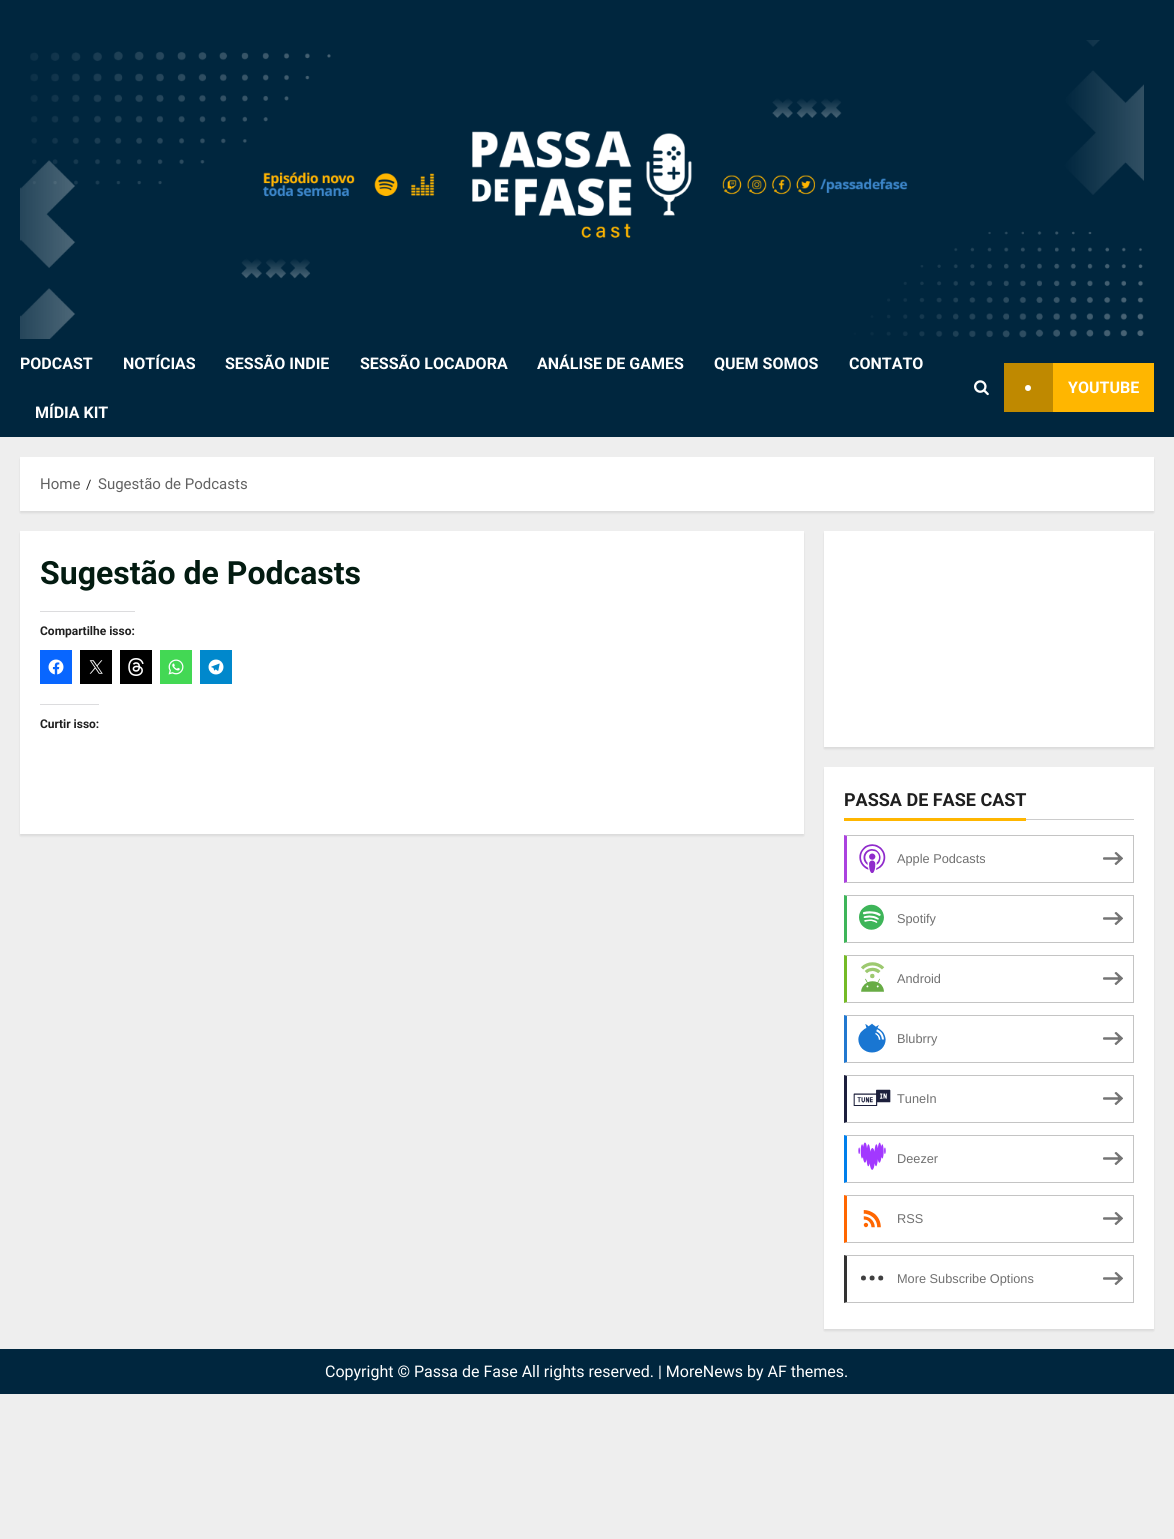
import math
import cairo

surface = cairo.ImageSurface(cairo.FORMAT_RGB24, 1174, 1539)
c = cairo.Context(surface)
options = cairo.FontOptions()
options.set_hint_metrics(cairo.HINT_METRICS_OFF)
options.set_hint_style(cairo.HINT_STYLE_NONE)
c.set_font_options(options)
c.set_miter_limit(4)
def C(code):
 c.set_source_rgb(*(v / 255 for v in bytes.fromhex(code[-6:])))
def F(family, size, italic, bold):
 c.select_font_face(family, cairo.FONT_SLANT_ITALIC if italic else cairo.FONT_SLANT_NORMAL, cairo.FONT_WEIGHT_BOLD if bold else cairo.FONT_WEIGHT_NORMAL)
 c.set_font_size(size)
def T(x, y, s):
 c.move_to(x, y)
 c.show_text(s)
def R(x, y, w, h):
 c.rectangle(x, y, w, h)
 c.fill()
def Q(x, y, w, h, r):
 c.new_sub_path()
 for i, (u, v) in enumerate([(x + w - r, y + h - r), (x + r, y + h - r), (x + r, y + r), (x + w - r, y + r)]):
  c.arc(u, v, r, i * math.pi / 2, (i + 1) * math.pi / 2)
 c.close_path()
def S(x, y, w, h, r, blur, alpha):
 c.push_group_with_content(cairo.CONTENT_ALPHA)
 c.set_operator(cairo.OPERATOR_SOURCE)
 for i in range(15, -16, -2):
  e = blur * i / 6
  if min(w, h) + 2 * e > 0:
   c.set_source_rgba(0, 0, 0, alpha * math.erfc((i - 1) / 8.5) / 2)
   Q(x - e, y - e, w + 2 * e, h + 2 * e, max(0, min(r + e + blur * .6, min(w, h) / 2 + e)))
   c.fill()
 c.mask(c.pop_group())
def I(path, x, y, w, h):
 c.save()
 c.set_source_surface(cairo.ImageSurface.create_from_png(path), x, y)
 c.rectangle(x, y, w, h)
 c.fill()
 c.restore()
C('eeeeee')
c.paint()
C('00263e')
R(0,0,1174,437)
I('1.png',20,40,1124,299)
F('Roboto',16,0,1)
C('ffffff')
T(20,369,'PODCAST')
T(123,369,'NOTÍCIAS')
T(225,369,'SESSÃO INDIE')
T(360,369,'SESSÃO LOCADORA')
T(537,369,'ANÁLISE DE GAMES')
T(714,369,'QUEM SOMOS')
T(849,369,'CONTATO')
T(35,418,'MÍDIA KIT')
I('2.png',974,380,15,16)
C('ffb600')
R(1053,363,101,49)
C('bf8900')
R(1004,363,49,49)
C('ffffff')
c.arc(1028,388,3,0,2 * math.pi)
c.fill()
T(1068,393,'YOUTUBE')
C('000000')
S(20,459,1134,54,0,1,.08)
C('ffffff')
R(20,457,1134,54)
F('Roboto',15,0,0)
C('626262')
T(40,489,'Home')
F('Roboto',13,0,0)
C('1f1f1f')
T(86,489,'/')
F('Roboto',15,0,0)
C('626262')
T(98,489,'Sugestão de Podcasts')
C('000000')
S(20,533,784,303,0,1,.08)
C('ffffff')
R(20,531,784,303)
F('Roboto',32,0,1)
C('031b11')
T(40,584,'Sugestão de Podcasts')
C('dcdcde')
R(40,611,95,1)
F('Roboto',12,0,1)
C('1f1f1f')
T(40,635,'Compartilhe isso:')
C('0866ff')
R(40,650,32,34)
I('3.png',48,659,16,16)
C('000000')
R(80,650,32,34)
I('4.png',89,660,14,14)
R(120,650,32,34)
I('5.png',128,658,16,18)
C('43d854')
R(160,650,32,34)
I('6.png',168,659,16,16)
C('0088cc')
R(200,650,32,34)
I('7.png',208,659,16,16)
C('dcdcde')
R(40,704,59,1)
C('1f1f1f')
T(40,728,'Curtir isso:')
C('000000')
S(824,533,330,216,0,1,.08)
C('ffffff')
R(824,531,330,216)
C('000000')
S(824,769,330,562,0,1,.08)
C('ffffff')
R(824,767,330,562)
C('cccccc')
R(1026,819,108,1)
F('Roboto',18,0,1)
C('1f1f1f')
T(844,806,'PASSA DE FASE CAST')
C('ffb600')
R(844,818,182,3)
C('c4c4c4')
c.new_path()
c.move_to(844,835)
c.line_to(1134,835)
c.line_to(1133,836)
c.line_to(847,836)
c.close_path()
c.fill()
R(1133,835,1,48)
c.new_path()
c.move_to(1134,883)
c.line_to(844,883)
c.line_to(847,882)
c.line_to(1133,882)
c.close_path()
c.fill()
C('ab42df')
c.new_path()
c.move_to(844,883)
c.line_to(844,835)
c.line_to(847,836)
c.line_to(847,882)
c.close_path()
c.fill()
I('8.png',859,844,27,29)
F('Liberation Sans',12.75,0,0)
C('707070')
T(897,863,'Apple Podcasts')
I('9.png',1103,852,20,13)
C('c4c4c4')
c.new_path()
c.move_to(844,895)
c.line_to(1134,895)
c.line_to(1133,896)
c.line_to(847,896)
c.close_path()
c.fill()
R(1133,895,1,48)
c.new_path()
c.move_to(1134,943)
c.line_to(844,943)
c.line_to(847,942)
c.line_to(1133,942)
c.close_path()
c.fill()
C('3eb559')
c.new_path()
c.move_to(844,943)
c.line_to(844,895)
c.line_to(847,896)
c.line_to(847,942)
c.close_path()
c.fill()
I('10.png',859,904,25,26)
C('707070')
T(897,923,'Spotify')
I('9.png',1103,912,20,13)
C('c4c4c4')
c.new_path()
c.move_to(844,955)
c.line_to(1134,955)
c.line_to(1133,956)
c.line_to(847,956)
c.close_path()
c.fill()
R(1133,955,1,48)
c.new_path()
c.move_to(1134,1003)
c.line_to(844,1003)
c.line_to(847,1002)
c.line_to(1133,1002)
c.close_path()
c.fill()
C('75ba26')
c.new_path()
c.move_to(844,1003)
c.line_to(844,955)
c.line_to(847,956)
c.line_to(847,1002)
c.close_path()
c.fill()
I('11.png',861,962,24,30)
C('707070')
T(897,983,'Android')
I('9.png',1103,972,20,13)
C('c4c4c4')
c.new_path()
c.move_to(844,1015)
c.line_to(1134,1015)
c.line_to(1133,1016)
c.line_to(847,1016)
c.close_path()
c.fill()
R(1133,1015,1,48)
c.new_path()
c.move_to(1134,1063)
c.line_to(844,1063)
c.line_to(847,1062)
c.line_to(1133,1062)
c.close_path()
c.fill()
C('2278cf')
c.new_path()
c.move_to(844,1063)
c.line_to(844,1015)
c.line_to(847,1016)
c.line_to(847,1062)
c.close_path()
c.fill()
I('12.png',858,1023,28,30)
C('707070')
T(897,1043,'Blubrry')
I('9.png',1103,1032,20,13)
C('c4c4c4')
c.new_path()
c.move_to(844,1075)
c.line_to(1134,1075)
c.line_to(1133,1076)
c.line_to(847,1076)
c.close_path()
c.fill()
R(1133,1075,1,48)
c.new_path()
c.move_to(1134,1123)
c.line_to(844,1123)
c.line_to(847,1122)
c.line_to(1133,1122)
c.close_path()
c.fill()
C('1c1f3d')
c.new_path()
c.move_to(844,1123)
c.line_to(844,1075)
c.line_to(847,1076)
c.line_to(847,1122)
c.close_path()
c.fill()
I('13.png',853,1089,38,17)
C('707070')
T(897,1103,'TuneIn')
I('9.png',1103,1092,20,13)
C('c4c4c4')
c.new_path()
c.move_to(844,1135)
c.line_to(1134,1135)
c.line_to(1133,1136)
c.line_to(847,1136)
c.close_path()
c.fill()
R(1133,1135,1,48)
c.new_path()
c.move_to(1134,1183)
c.line_to(844,1183)
c.line_to(847,1182)
c.line_to(1133,1182)
c.close_path()
c.fill()
C('007feb')
c.new_path()
c.move_to(844,1183)
c.line_to(844,1135)
c.line_to(847,1136)
c.line_to(847,1182)
c.close_path()
c.fill()
I('14.png',858,1142,28,28)
C('707070')
T(897,1163,'Deezer')
I('9.png',1103,1152,20,13)
C('c4c4c4')
c.new_path()
c.move_to(844,1195)
c.line_to(1134,1195)
c.line_to(1133,1196)
c.line_to(847,1196)
c.close_path()
c.fill()
R(1133,1195,1,48)
c.new_path()
c.move_to(1134,1243)
c.line_to(844,1243)
c.line_to(847,1242)
c.line_to(1133,1242)
c.close_path()
c.fill()
C('ff6600')
c.new_path()
c.move_to(844,1243)
c.line_to(844,1195)
c.line_to(847,1196)
c.line_to(847,1242)
c.close_path()
c.fill()
I('15.png',863,1210,18,18)
C('707070')
T(897,1223,'RSS')
I('9.png',1103,1212,20,13)
C('c4c4c4')
c.new_path()
c.move_to(844,1255)
c.line_to(1134,1255)
c.line_to(1133,1256)
c.line_to(847,1256)
c.close_path()
c.fill()
R(1133,1255,1,48)
c.new_path()
c.move_to(1134,1303)
c.line_to(844,1303)
c.line_to(847,1302)
c.line_to(1133,1302)
c.close_path()
c.fill()
C('333333')
c.new_path()
c.move_to(844,1303)
c.line_to(844,1255)
c.line_to(847,1256)
c.line_to(847,1302)
c.close_path()
c.fill()
I('16.png',861,1275,23,6)
C('707070')
T(897,1283,'More Subscribe Options')
I('9.png',1103,1272,20,13)
C('00263e')
R(0,1349,1174,45)
F('Roboto',16,0,0)
C('ffffff')
T(325,1377,'Copyright © Passa de Fase All rights reserved. | MoreNews by AF themes.')
surface.write_to_png('o.png')
